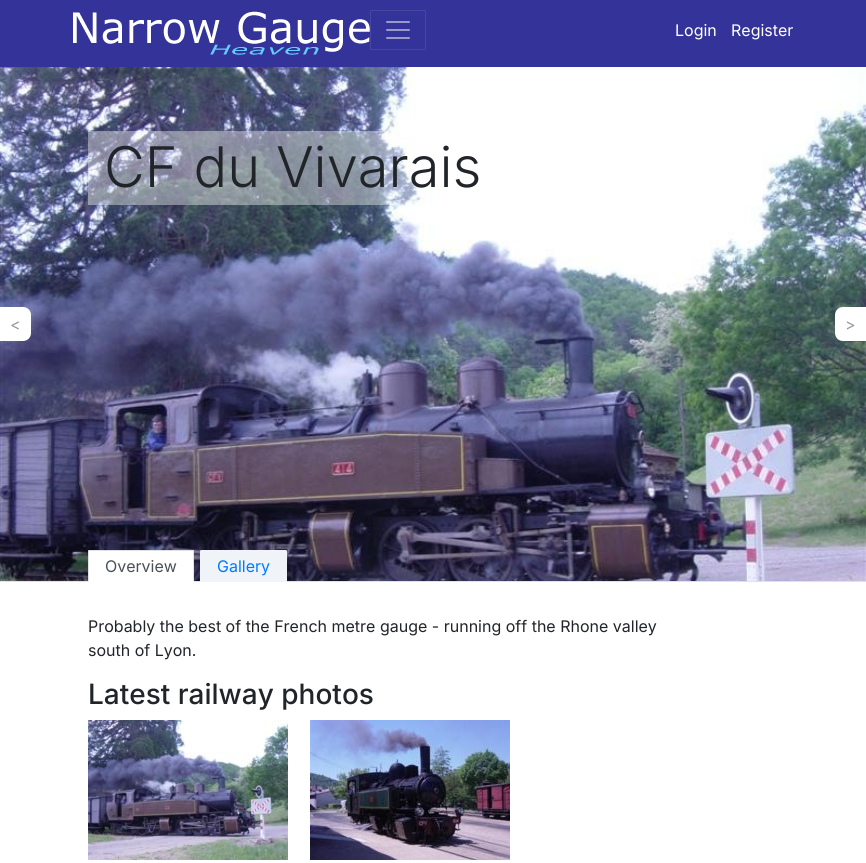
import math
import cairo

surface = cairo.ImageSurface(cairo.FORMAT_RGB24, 866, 863)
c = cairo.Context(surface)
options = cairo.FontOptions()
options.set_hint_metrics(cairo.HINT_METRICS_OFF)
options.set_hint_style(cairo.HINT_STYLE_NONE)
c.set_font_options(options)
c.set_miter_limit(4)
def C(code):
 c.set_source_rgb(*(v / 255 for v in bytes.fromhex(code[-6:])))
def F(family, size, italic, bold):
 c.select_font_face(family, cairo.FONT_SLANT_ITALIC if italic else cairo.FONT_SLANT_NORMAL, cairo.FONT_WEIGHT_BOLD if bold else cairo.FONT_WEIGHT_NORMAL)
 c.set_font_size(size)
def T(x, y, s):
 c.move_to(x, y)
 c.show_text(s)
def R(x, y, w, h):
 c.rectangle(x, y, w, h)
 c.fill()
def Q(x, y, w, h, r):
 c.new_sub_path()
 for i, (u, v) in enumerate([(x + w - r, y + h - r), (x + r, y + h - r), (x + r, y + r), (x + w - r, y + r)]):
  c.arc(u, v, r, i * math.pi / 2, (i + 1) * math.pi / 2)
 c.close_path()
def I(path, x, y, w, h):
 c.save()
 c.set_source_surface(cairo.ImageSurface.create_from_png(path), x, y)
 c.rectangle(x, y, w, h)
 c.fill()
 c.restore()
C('ffffff')
c.paint()
C('333399')
R(0,0,866,67)
I('1.png',73,11,297,44)
Q(370.5,10.5,55,39,1)
C('4747a3')
c.set_line_width(1)
c.stroke()
I('2.png',386,21,24,18)
F('Inter',16,0,0)
C('ffffff')
T(675,36,'Login')
T(731,36,'Register')
I('3.png',0,67,866,514)
C('dee2e6')
R(0,581,866,1)
c.set_source_rgba(1,1,1,0.4)
R(88,131,337,74)
F('Inter Light',56,0,0)
C('212529')
T(104,187,'CF du Vivarais')
C('ffffff')
c.new_path()
c.move_to(0,307)
c.line_to(23,307)
c.curve_to(27.5,307,31,310.5,31,315)
c.line_to(31,333)
c.curve_to(31,337.5,27.5,341,23,341)
c.line_to(0,341)
c.close_path()
c.fill()
F('Inter',16,0,0)
C('999999')
T(10,330,'<')
C('ffffff')
c.new_path()
c.move_to(843,307)
c.line_to(866,307)
c.line_to(866,341)
c.line_to(843,341)
c.curve_to(838.5,341,835,337.5,835,333)
c.line_to(835,315)
c.curve_to(835,310.5,838.5,307,843,307)
c.close_path()
c.fill()
C('999999')
T(845,330,'>')
C('ffffff')
c.new_path()
c.move_to(89.5,550)
c.line_to(192.5,550)
c.curve_to(193.5,550,194,550.5,194,551.5)
c.line_to(194,582)
c.line_to(88,582)
c.line_to(88,551.5)
c.curve_to(88,550.5,88.5,550,89.5,550)
c.close_path()
c.fill()
C('dee2e6')
c.new_path()
c.move_to(89,550)
c.line_to(88,550)
c.line_to(89,551)
c.line_to(193,551)
c.line_to(194,550)
c.line_to(193,550)
c.close_path()
c.fill()
c.new_path()
c.move_to(194,582)
c.line_to(194,551)
c.line_to(193.5,550.5)
c.line_to(193,551)
c.line_to(193,581)
c.close_path()
c.fill()
C('ffffff')
c.new_path()
c.move_to(194,582)
c.line_to(193,581)
c.line_to(89,581)
c.line_to(88,582)
c.close_path()
c.fill()
C('dee2e6')
c.new_path()
c.move_to(89,551)
c.line_to(88.5,550.5)
c.line_to(88,551)
c.line_to(88,582)
c.line_to(89,581)
c.close_path()
c.fill()
C('495057')
T(105,572,'Overview')
C('f0f4f8')
c.new_path()
c.move_to(201.5,550)
c.line_to(285.5,550)
c.curve_to(286.5,550,287,550.5,287,551.5)
c.line_to(287,582)
c.line_to(200,582)
c.line_to(200,551.5)
c.curve_to(200,550.5,200.5,550,201.5,550)
c.close_path()
c.fill()
C('007bff')
T(217,572,'Gallery')
C('212529')
T(88,632,'Probably the best of the French metre gauge - running off the Rhone valley')
T(88,656,'south of Lyon.')
F('Inter Medium',28,0,0)
T(88,704,'Latest railway photos')
I('4.png',88,720,200,140)
I('5.png',310,720,200,140)
surface.write_to_png('o.png')
